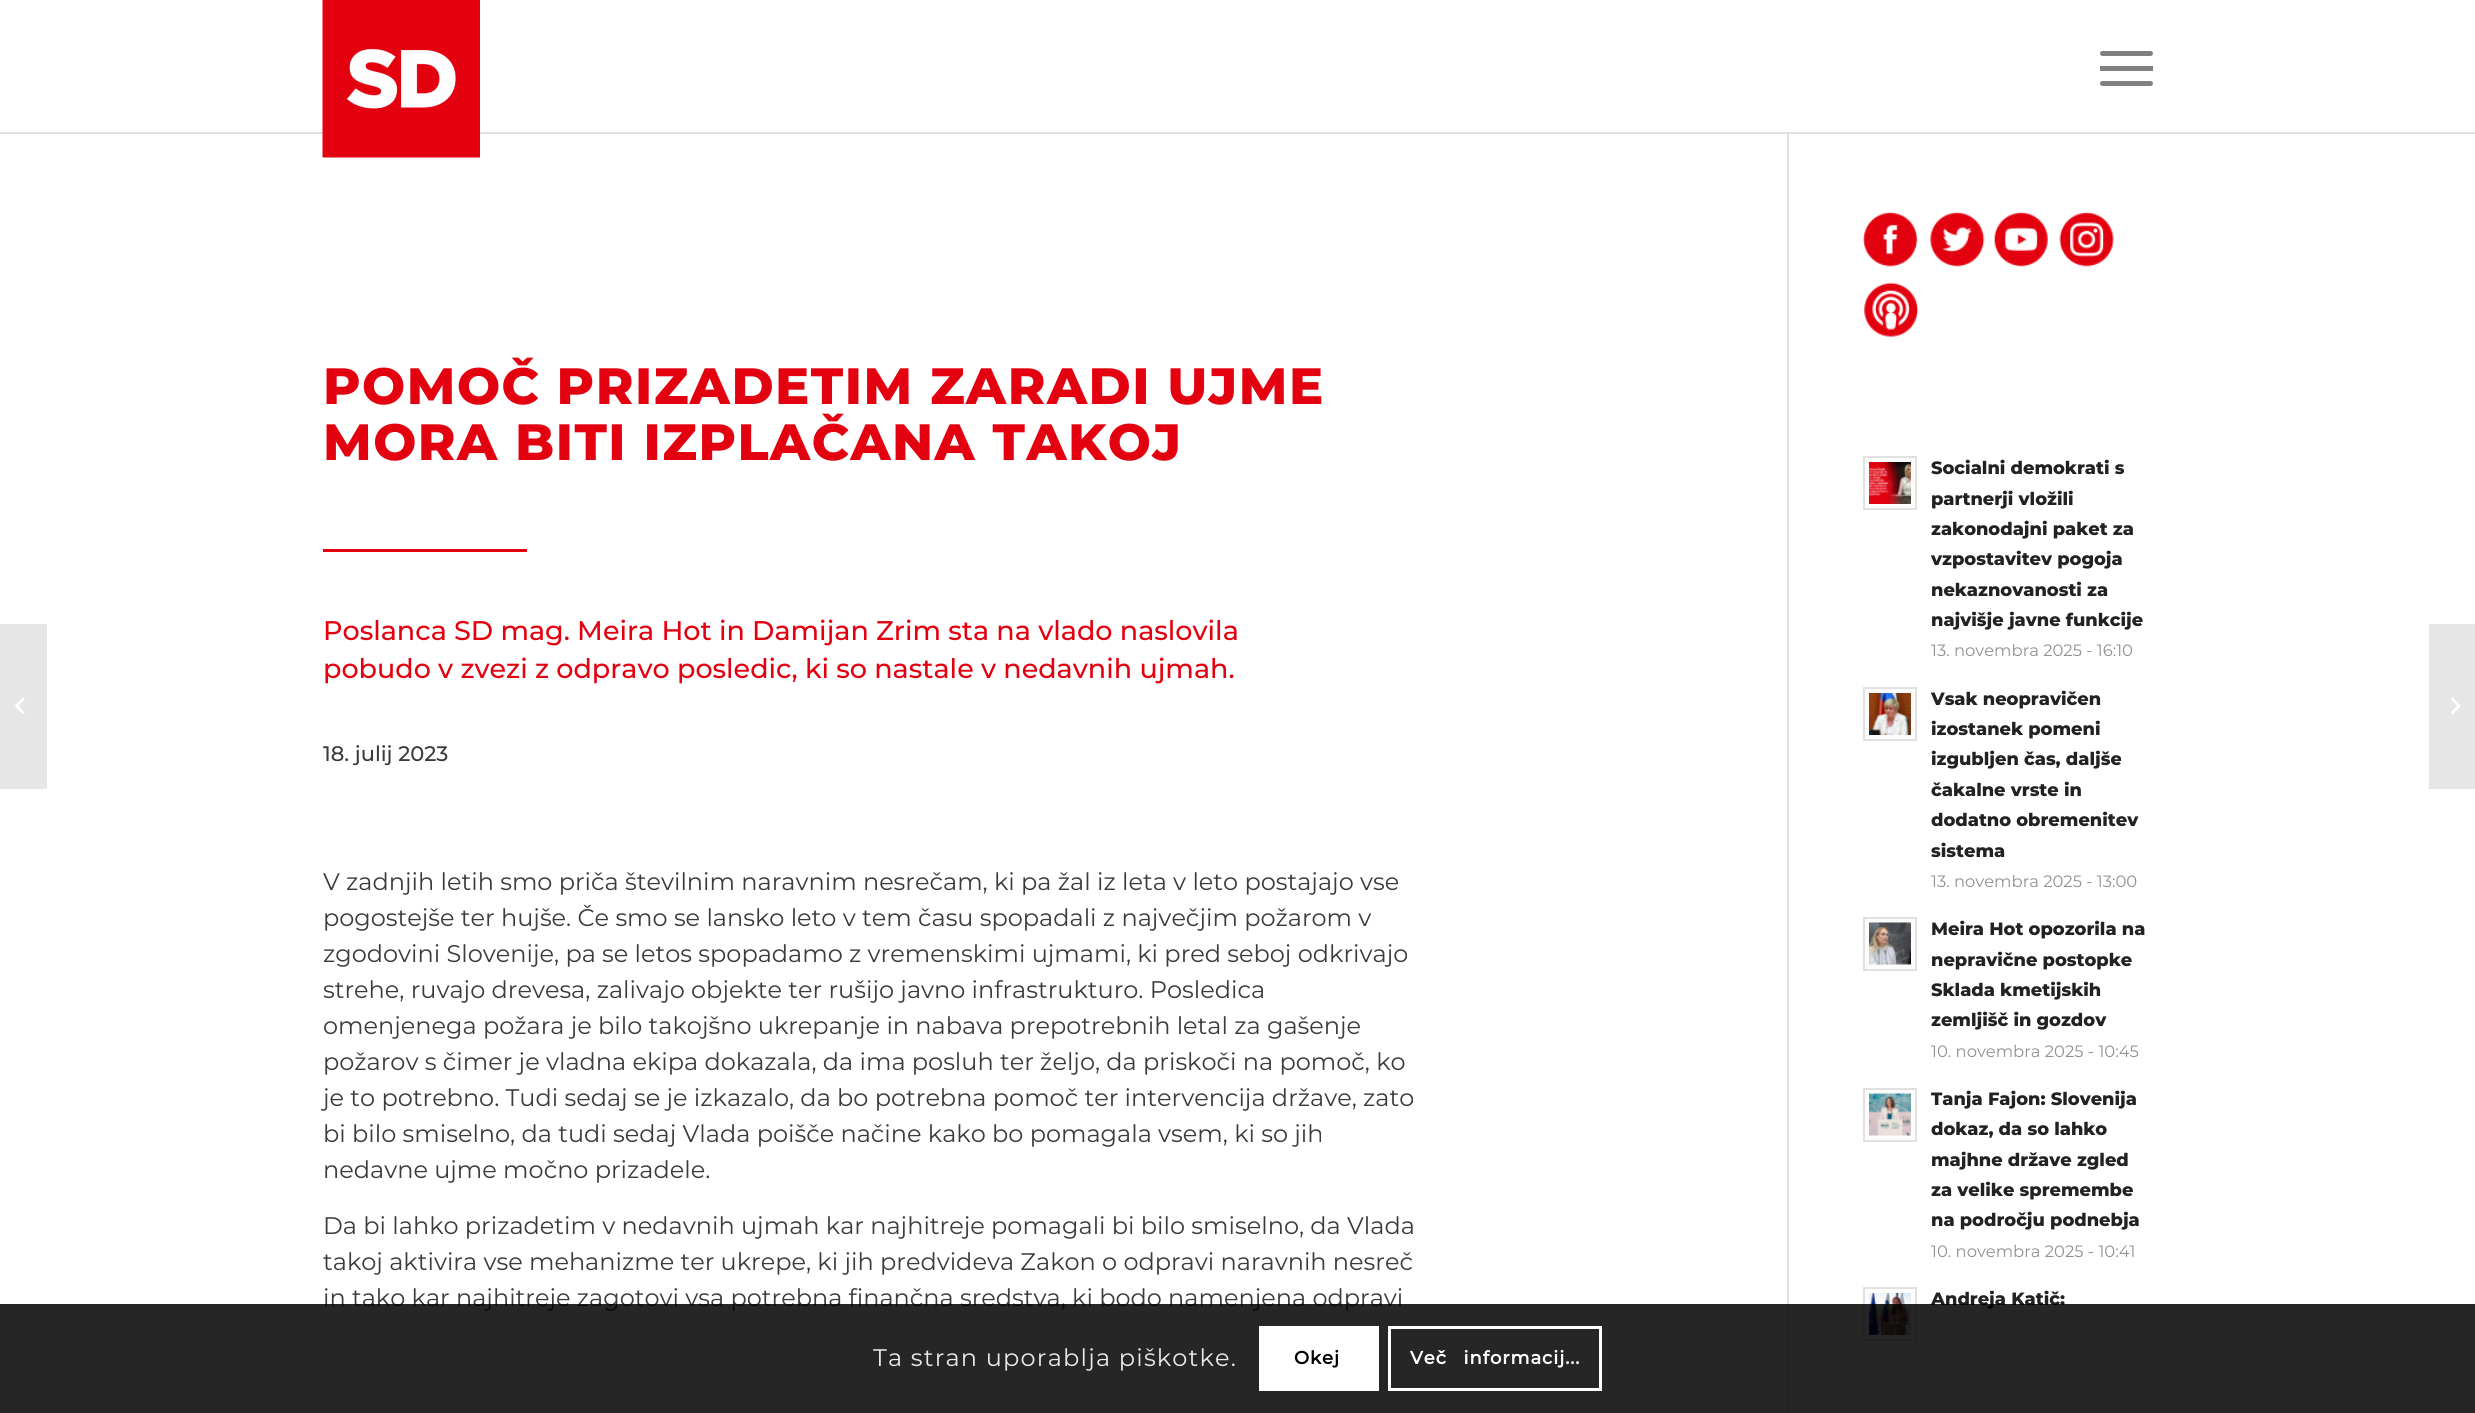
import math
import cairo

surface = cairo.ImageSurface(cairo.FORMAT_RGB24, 2475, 1413)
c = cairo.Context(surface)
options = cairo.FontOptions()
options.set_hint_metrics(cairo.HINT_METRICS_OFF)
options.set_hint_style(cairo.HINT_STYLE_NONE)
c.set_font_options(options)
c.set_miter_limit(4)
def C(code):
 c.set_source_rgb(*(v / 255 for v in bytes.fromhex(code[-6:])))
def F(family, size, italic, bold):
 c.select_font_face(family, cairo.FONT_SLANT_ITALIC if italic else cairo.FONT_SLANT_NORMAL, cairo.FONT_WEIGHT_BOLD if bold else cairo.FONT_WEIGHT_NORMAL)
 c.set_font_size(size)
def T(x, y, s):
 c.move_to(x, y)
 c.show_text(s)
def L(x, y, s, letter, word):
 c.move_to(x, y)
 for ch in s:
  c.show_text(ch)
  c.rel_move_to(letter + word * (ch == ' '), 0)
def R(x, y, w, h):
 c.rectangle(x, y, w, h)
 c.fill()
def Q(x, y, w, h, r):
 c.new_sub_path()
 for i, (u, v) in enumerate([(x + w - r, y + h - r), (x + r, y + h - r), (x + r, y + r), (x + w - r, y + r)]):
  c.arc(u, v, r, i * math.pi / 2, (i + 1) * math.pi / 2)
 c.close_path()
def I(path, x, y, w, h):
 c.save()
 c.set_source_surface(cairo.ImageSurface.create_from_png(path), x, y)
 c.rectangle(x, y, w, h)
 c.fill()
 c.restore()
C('ffffff')
c.paint()
C('e1e1e1')
R(0,132,2475,2)
I('1.png',322,0,158,158)
C('808080')
R(2100,66,53,5)
Q(2100,51,53,5,2.5)
c.fill()
Q(2100,81,53,5,2.5)
c.fill()
C('e6e6e6')
R(0,624,47,165)
I('2.png',15,697,10,17)
C('e1e1e1')
R(1787,134,2,1279)
F('Montserrat ExtraBold',51,0,0)
C('e3000f')
L(323,404,'POMOČ PRIZADETIM ZARADI UJME',1.5,0)
L(323,460,'MORA BITI IZPLAČANA TAKOJ',1.5,0)
R(323,549,204,3)
F('Montserrat Medium',27,0,0)
T(323,640,'Poslanca SD mag. Meira Hot in Damijan Zrim sta na vlado naslovila')
T(323,678,'pobudo v zvezi z odpravo posledic, ki so nastale v nedavnih ujmah.')
F('Montserrat Medium',21,0,0)
C('3b3b3b')
T(323,761,'18. julij 2023')
F('Montserrat',24,0,0)
T(323,890,'V zadnjih letih smo priča številnim naravnim nesrečam, ki pa žal iz leta v leto postajajo vse')
T(323,926,'pogostejše ter hujše. Če smo se lansko leto v tem času spopadali z največjim požarom v')
T(323,962,'zgodovini Slovenije, pa se letos spopadamo z vremenskimi ujmami, ki pred seboj odkrivajo')
T(323,998,'strehe, ruvajo drevesa, zalivajo objekte ter rušijo javno infrastrukturo. Posledica')
T(323,1034,'omenjenega požara je bilo takojšno ukrepanje in nabava prepotrebnih letal za gašenje')
T(323,1070,'požarov s čimer je vladna ekipa dokazala, da ima posluh ter željo, da priskoči na pomoč, ko')
T(323,1106,'je to potrebno. Tudi sedaj se je izkazalo, da bo potrebna pomoč ter intervencija države, zato')
T(323,1142,'bi bilo smiselno, da tudi sedaj Vlada poišče načine kako bo pomagala vsem, ki so jih')
T(323,1178,'nedavne ujme močno prizadele.')
T(323,1234,'Da bi lahko prizadetim v nedavnih ujmah kar najhitreje pomagali bi bilo smiselno, da Vlada')
T(323,1270,'takoj aktivira vse mehanizme ter ukrepe, ki jih predvideva Zakon o odpravi naravnih nesreč')
T(323,1306,'in tako kar najhitreje zagotovi vsa potrebna finančna sredstva, ki bodo namenjena odpravi')
I('3.png',1863,212,55,55)
I('4.png',1930,212,55,55)
I('5.png',1994,212,54,55)
I('6.png',2059,212,55,55)
I('7.png',1864,282,55,55)
C('fcfcfc')
c.rectangle(1864,457,52,52)
c.fill_preserve()
C('e1e1e1')
c.stroke()
I('8.png',1869,462,42,42)
F('Montserrat ExtraBold',17.8,0,0)
C('222222')
T(1931,474,'Socialni demokrati s')
T(1931,505,'partnerji vložili')
T(1931,535,'zakonodajni paket za')
T(1931,565,'vzpostavitev pogoja')
T(1931,596,'nekaznovanosti za')
T(1931,626,'najvišje javne funkcije')
F('Montserrat',16.4,0,0)
C('919191')
T(1931,656,'13. novembra 2025 - 16:10')
C('fcfcfc')
c.rectangle(1864,688,52,52)
c.fill_preserve()
C('e1e1e1')
c.stroke()
I('9.png',1869,693,42,42)
F('Montserrat ExtraBold',17.8,0,0)
C('222222')
T(1931,705,'Vsak neopravičen')
T(1931,735,'izostanek pomeni')
T(1931,765,'izgubljen čas, daljše')
T(1931,796,'čakalne vrste in')
T(1931,826,'dodatno obremenitev')
T(1931,857,'sistema')
F('Montserrat',16.4,0,0)
C('919191')
T(1931,887,'13. novembra 2025 - 13:00')
C('fcfcfc')
c.rectangle(1864,918,52,52)
c.fill_preserve()
C('e1e1e1')
c.stroke()
I('10.png',1869,922,42,43)
F('Montserrat ExtraBold',17.8,0,0)
C('222222')
T(1931,935,'Meira Hot opozorila na')
T(1931,966,'nepravične postopke')
T(1931,996,'Sklada kmetijskih')
T(1931,1026,'zemljišč in gozdov')
F('Montserrat',16.4,0,0)
C('919191')
T(1931,1057,'10. novembra 2025 - 10:45')
C('fcfcfc')
c.rectangle(1864,1089,52,52)
c.fill_preserve()
C('e1e1e1')
c.stroke()
I('11.png',1869,1093,42,43)
c.save()
c.rectangle(1931,1085,222,181)
c.clip()
F('Montserrat ExtraBold',17.8,0,0)
C('222222')
T(1931,1105,'Tanja Fajon: Slovenija')
c.restore()
F('Montserrat ExtraBold',17.8,0,0)
C('222222')
T(1931,1135,'dokaz, da so lahko')
T(1931,1166,'majhne države zgled')
T(1931,1196,'za velike spremembe')
T(1931,1226,'na področju podnebja')
F('Montserrat',16.4,0,0)
C('919191')
T(1931,1257,'10. novembra 2025 - 10:41')
C('fcfcfc')
c.rectangle(1864,1288,52,52)
c.fill_preserve()
C('e1e1e1')
c.stroke()
I('12.png',1869,1293,42,42)
F('Montserrat ExtraBold',17.8,0,0)
C('222222')
T(1931,1305,'Andreja Katič:')
C('e6e6e6')
R(2429,624,46,165)
I('13.png',2451,697,10,17)
c.set_source_rgba(0,0,0,0.85)
R(0,1304,2475,109)
F('Montserrat',24,0,0)
C('e9e9e9')
L(873,1366,'Ta stran uporablja piškotke.',1.2,0)
C('ffffff')
R(1259,1326,120,65)
F('Montserrat',18,0,1)
C('000000')
L(1294,1364,'Okej',.9,0)
c.rectangle(1389.5,1327.5,211,62)
C('ffffff')
c.set_line_width(3)
c.stroke()
L(1410,1364,'Več informacij...',.9,11)
surface.write_to_png('o.png')
